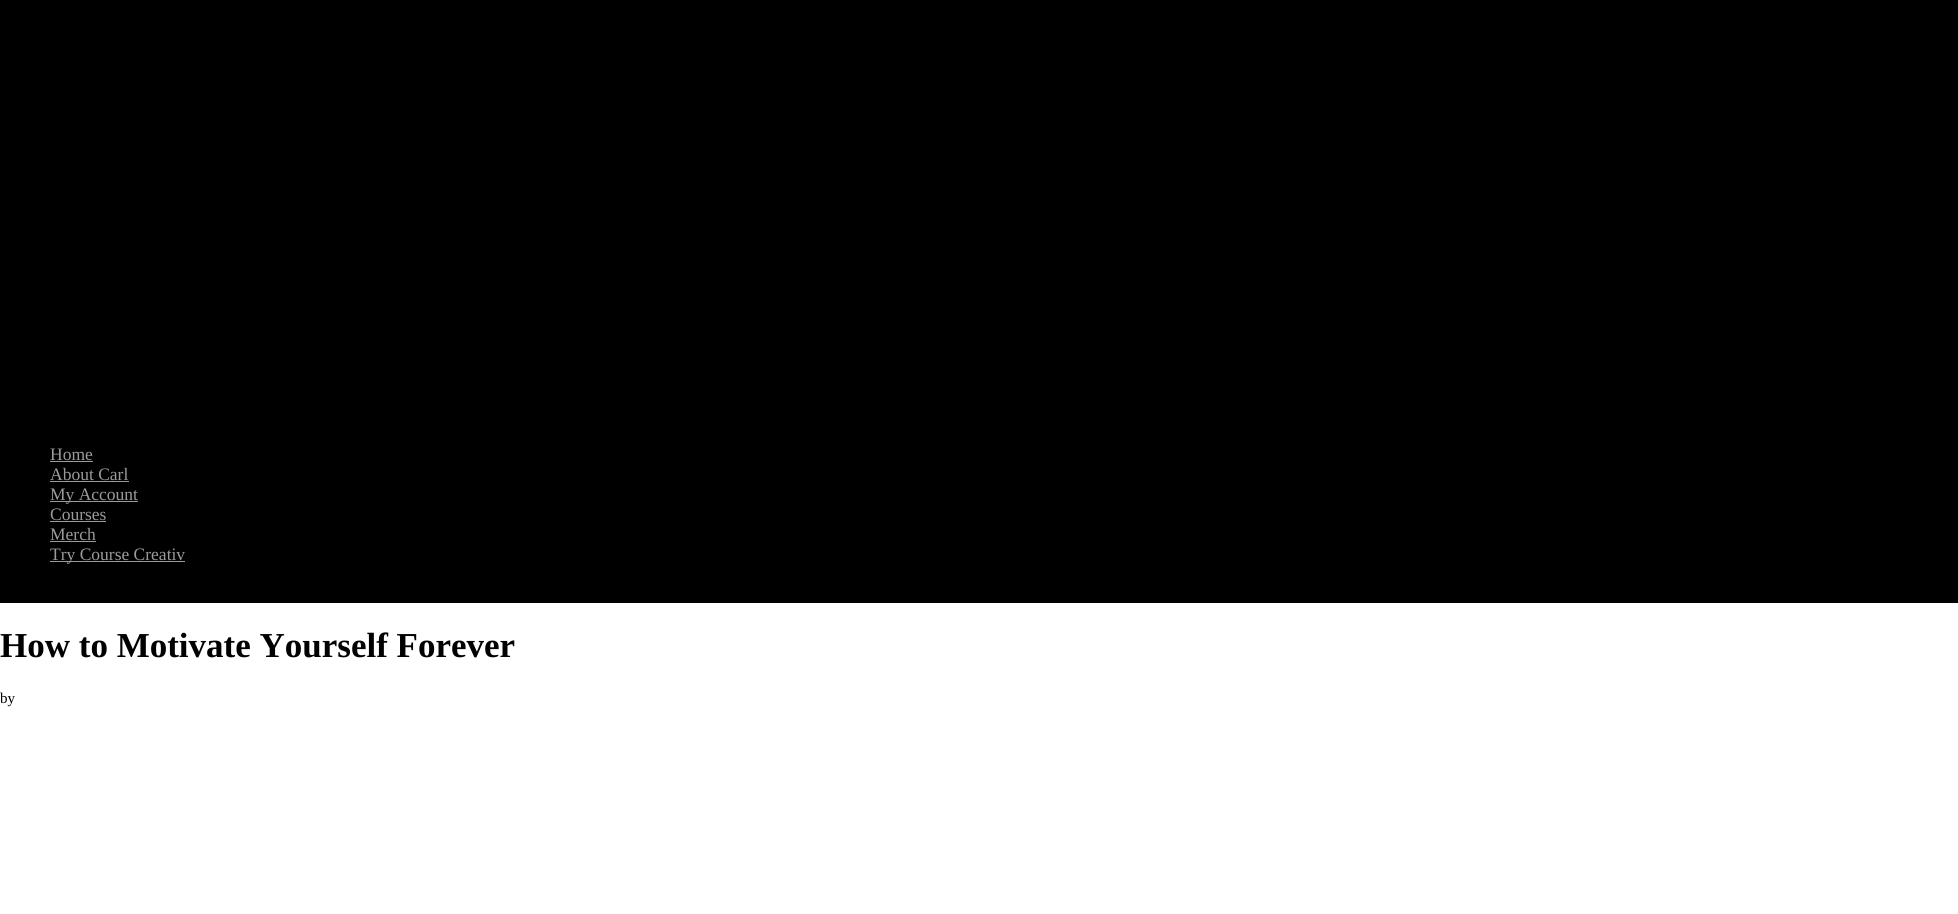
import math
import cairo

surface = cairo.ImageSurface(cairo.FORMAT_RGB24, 1958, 914)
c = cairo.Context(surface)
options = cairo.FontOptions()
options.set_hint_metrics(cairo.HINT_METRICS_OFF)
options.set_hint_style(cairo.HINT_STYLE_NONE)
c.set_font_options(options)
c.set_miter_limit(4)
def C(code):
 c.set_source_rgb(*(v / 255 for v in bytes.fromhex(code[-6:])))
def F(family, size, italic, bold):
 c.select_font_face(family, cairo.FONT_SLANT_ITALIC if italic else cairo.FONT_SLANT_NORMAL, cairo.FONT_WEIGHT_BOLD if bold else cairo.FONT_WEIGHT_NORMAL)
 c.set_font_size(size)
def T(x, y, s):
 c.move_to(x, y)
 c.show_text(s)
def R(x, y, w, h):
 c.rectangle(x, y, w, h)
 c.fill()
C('ffffff')
c.paint()
C('000000')
R(0,0,1958,603)
F('Liberation Serif',17.5,0,0)
C('9b9b9b')
T(50,460,'Home')
R(50,461,43,1)
T(50,480,'About Carl')
R(50,481,79,1)
R(50,501,88,1)
T(50,500,'My Account')
T(50,520,'Courses')
R(50,521,56,1)
T(50,540,'Merch')
R(50,541,46,1)
R(50,561,135,1)
T(50,560,'Try Course Creativ')
F('Liberation Serif',35,0,1)
C('000000')
T(0,657,'How to Motivate Yourself Forever')
F('Liberation Serif',15,0,0)
T(0,703,'by')
surface.write_to_png('o.png')
